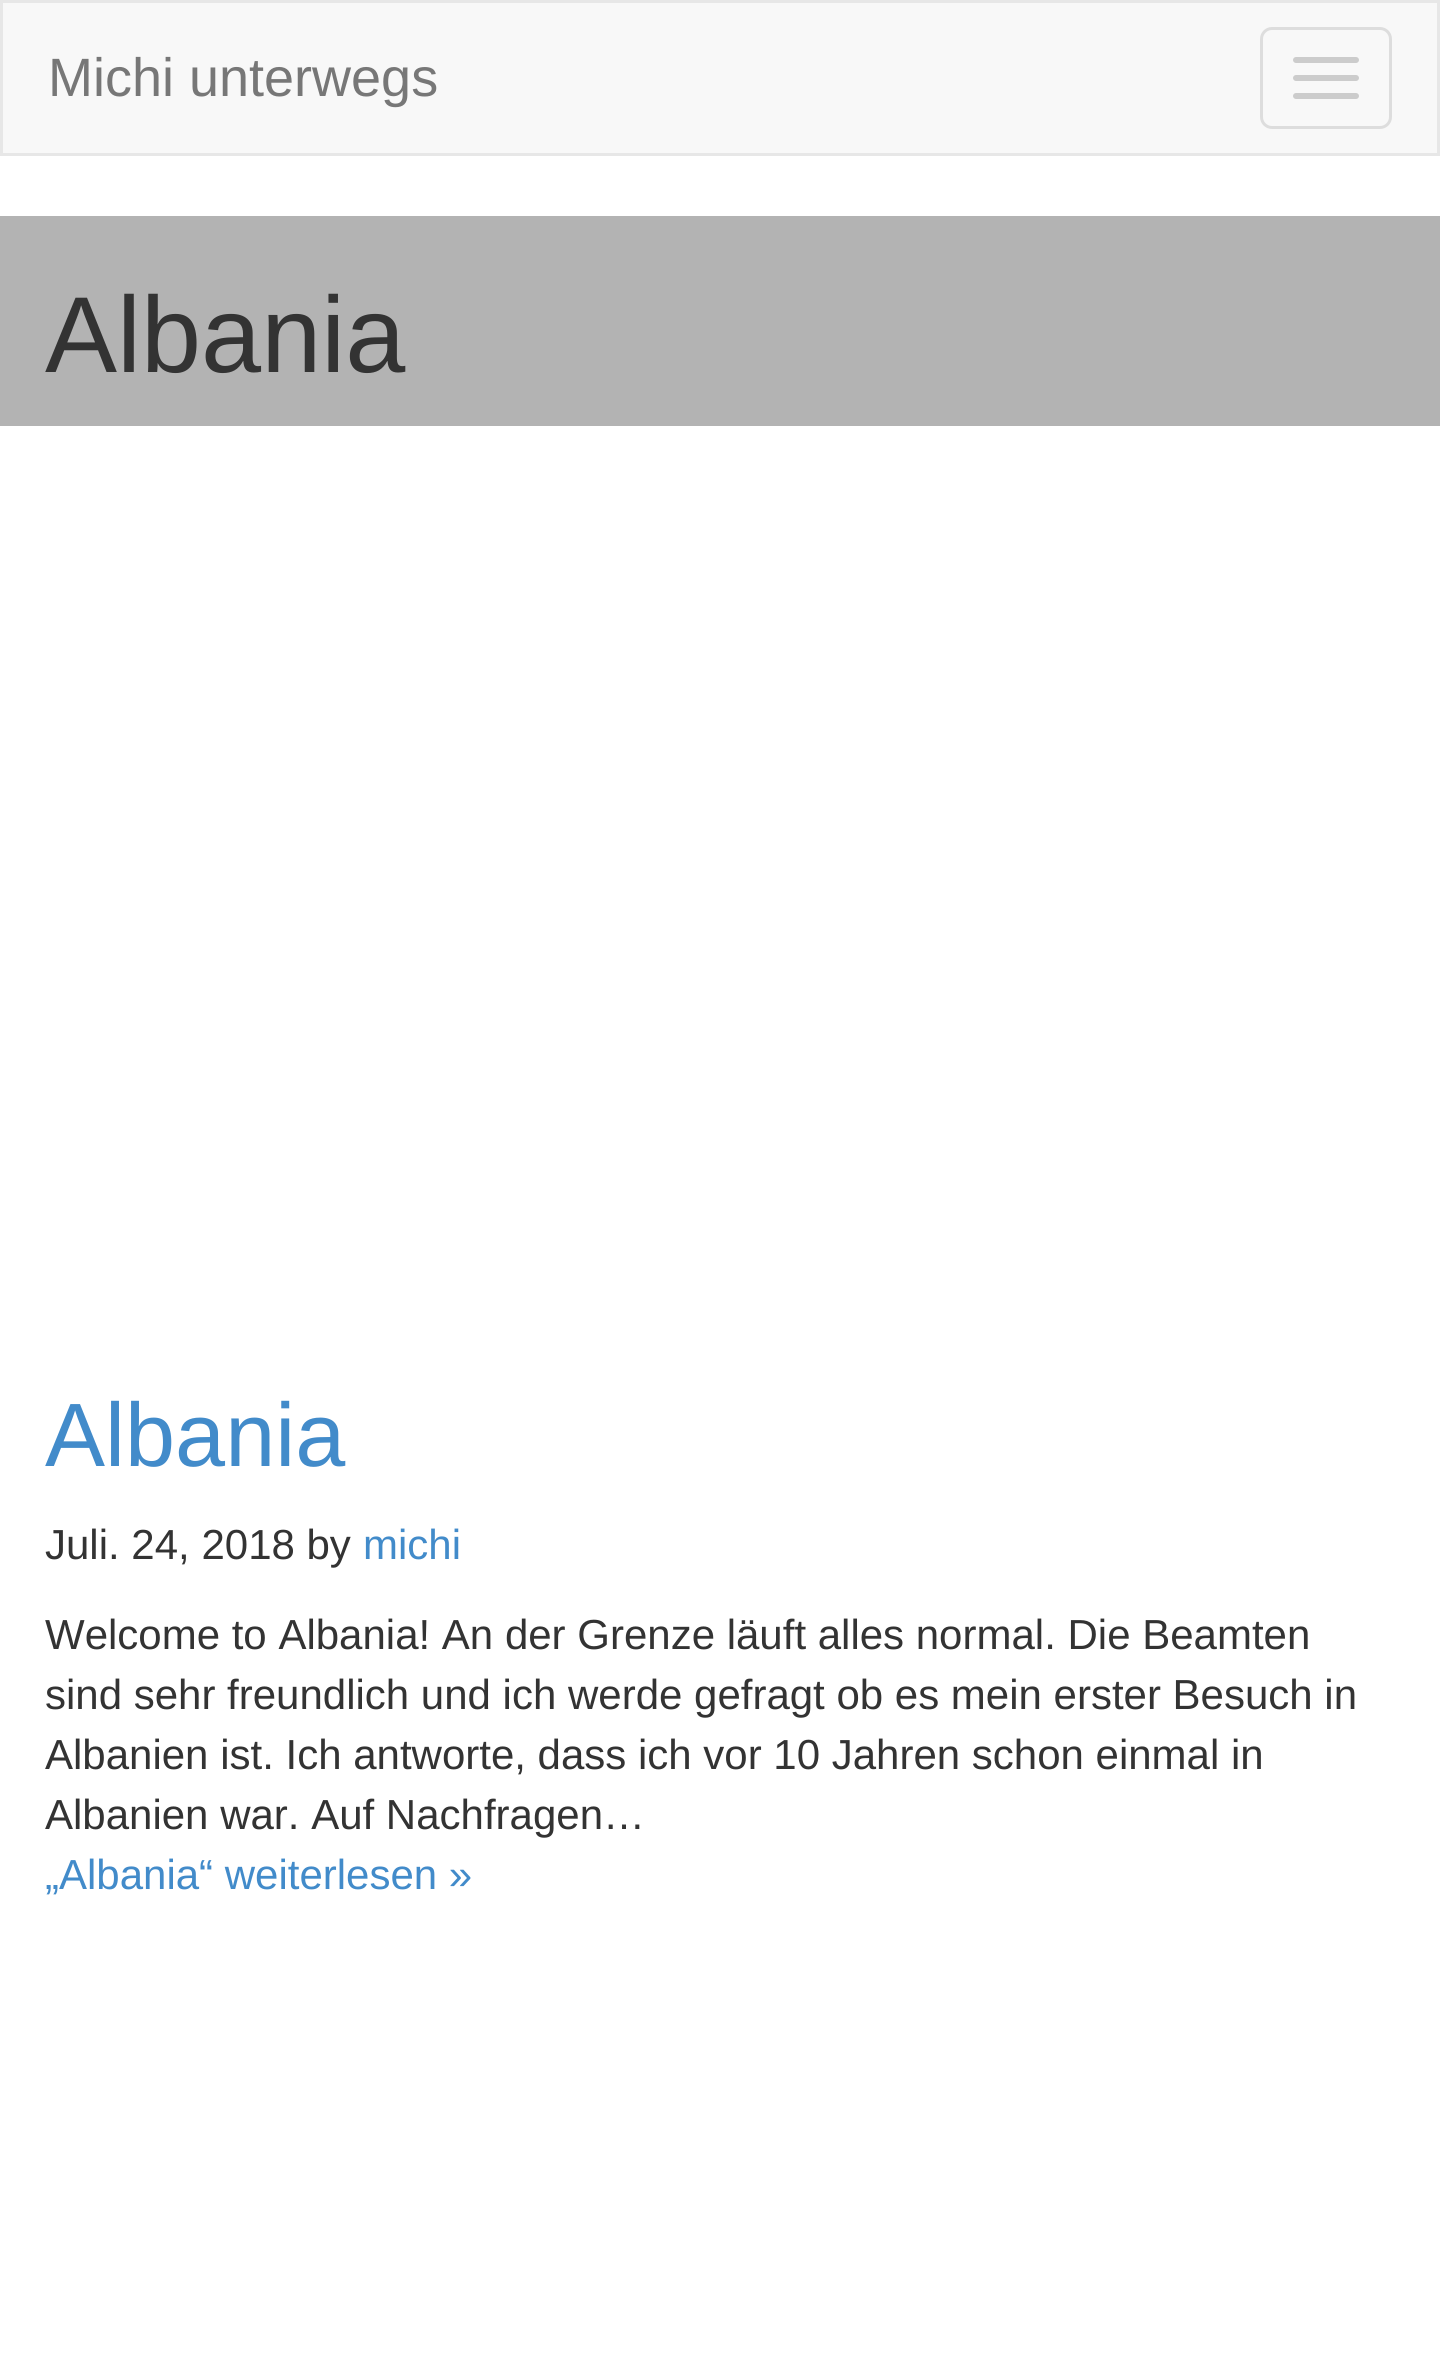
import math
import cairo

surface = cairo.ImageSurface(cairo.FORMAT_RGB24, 1440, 2373)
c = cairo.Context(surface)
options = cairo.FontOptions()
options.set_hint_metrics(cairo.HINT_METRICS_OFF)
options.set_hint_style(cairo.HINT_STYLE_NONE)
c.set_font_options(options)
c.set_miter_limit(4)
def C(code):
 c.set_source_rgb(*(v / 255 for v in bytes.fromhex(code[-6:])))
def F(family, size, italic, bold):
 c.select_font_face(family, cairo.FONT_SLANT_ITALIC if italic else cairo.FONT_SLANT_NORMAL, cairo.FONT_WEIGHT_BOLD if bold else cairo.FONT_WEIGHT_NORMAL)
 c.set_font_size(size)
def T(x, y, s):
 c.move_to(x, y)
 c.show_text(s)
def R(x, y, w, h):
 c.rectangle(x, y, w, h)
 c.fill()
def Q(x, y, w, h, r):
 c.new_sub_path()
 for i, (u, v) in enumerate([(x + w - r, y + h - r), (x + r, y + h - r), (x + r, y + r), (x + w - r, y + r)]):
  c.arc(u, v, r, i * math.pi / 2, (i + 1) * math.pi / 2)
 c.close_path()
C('ffffff')
c.paint()
C('f8f8f8')
c.rectangle(1.5,1.5,1437,153)
c.fill_preserve()
C('e7e7e7')
c.set_line_width(3)
c.stroke()
F('Liberation Sans',54,0,0)
C('777777')
T(48,96,'Michi unterwegs')
Q(1261.5,28.5,129,99,10.5)
C('dddddd')
c.stroke()
C('cccccc')
Q(1293,57,66,6,3)
c.fill()
Q(1293,75,66,6,3)
c.fill()
Q(1293,93,66,6,3)
c.fill()
C('b3b3b3')
R(0,216,1440,210)
F('Liberation Sans',108,0,0)
C('333333')
T(45,372,'Albania')
F('Liberation Sans',90,0,0)
C('428bca')
T(45,1466,'Albania')
F('Liberation Sans',42,0,0)
C('333333')
T(45,1559,'Juli. 24, 2018 by')
C('428bca')
T(363,1559,'michi')
C('333333')
T(45,1649,'Welcome to Albania! An der Grenze läuft alles normal. Die Beamten')
T(45,1709,'sind sehr freundlich und ich werde gefragt ob es mein erster Besuch in')
T(45,1769,'Albanien ist. Ich antworte, dass ich vor 10 Jahren schon einmal in')
T(45,1829,'Albanien war. Auf Nachfragen…')
C('428bca')
T(45,1889,'„Albania“ weiterlesen »')
surface.write_to_png('o.png')
